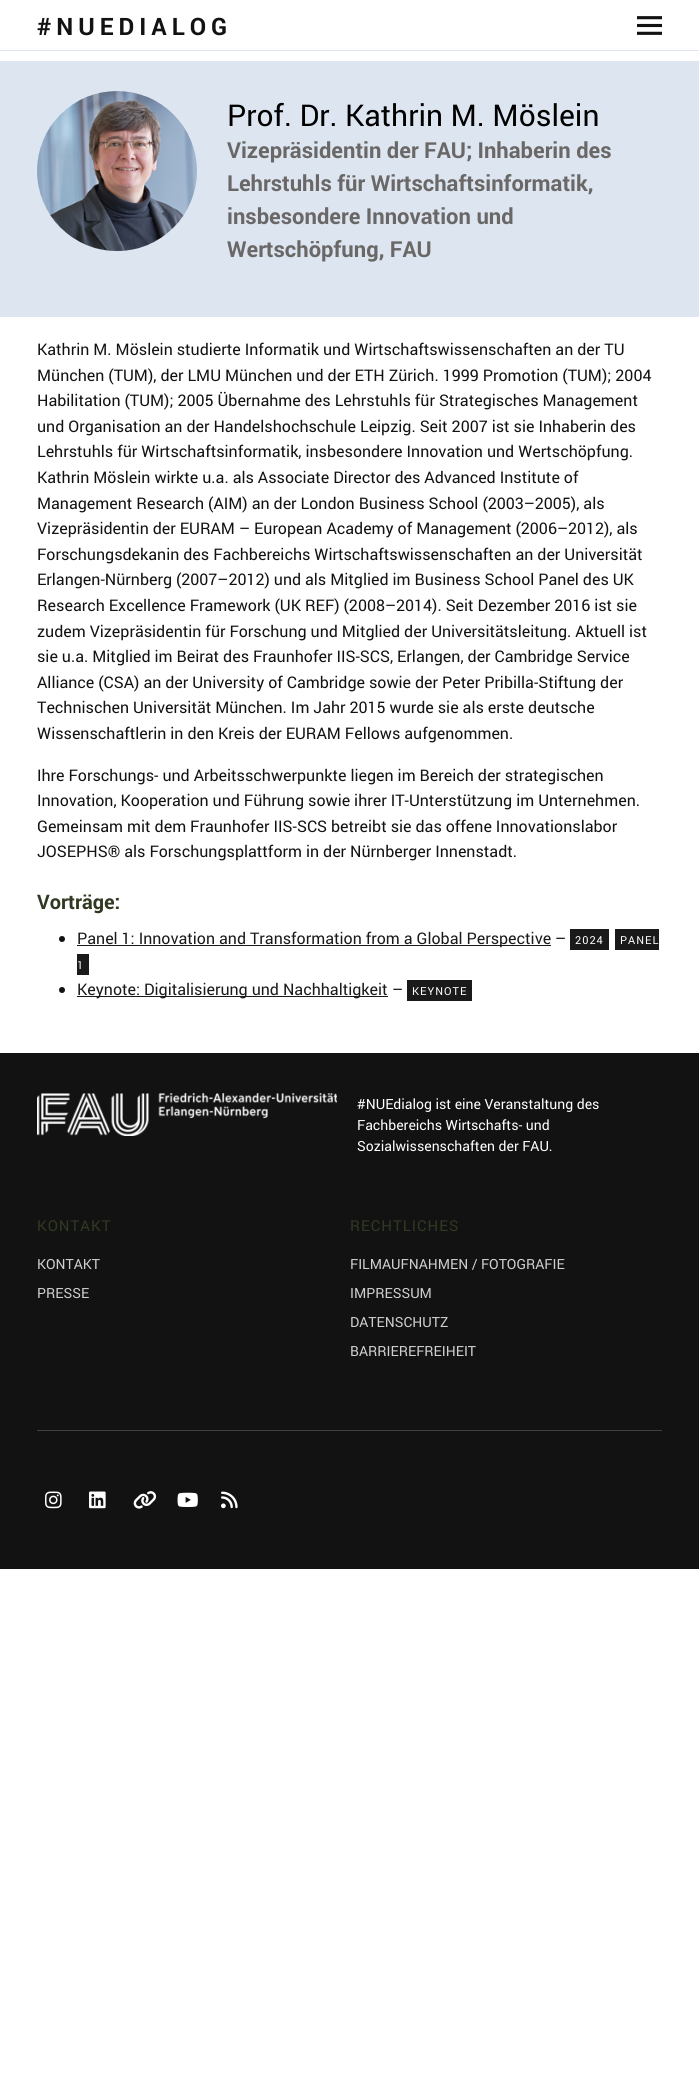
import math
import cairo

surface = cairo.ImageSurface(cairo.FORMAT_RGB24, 699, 2081)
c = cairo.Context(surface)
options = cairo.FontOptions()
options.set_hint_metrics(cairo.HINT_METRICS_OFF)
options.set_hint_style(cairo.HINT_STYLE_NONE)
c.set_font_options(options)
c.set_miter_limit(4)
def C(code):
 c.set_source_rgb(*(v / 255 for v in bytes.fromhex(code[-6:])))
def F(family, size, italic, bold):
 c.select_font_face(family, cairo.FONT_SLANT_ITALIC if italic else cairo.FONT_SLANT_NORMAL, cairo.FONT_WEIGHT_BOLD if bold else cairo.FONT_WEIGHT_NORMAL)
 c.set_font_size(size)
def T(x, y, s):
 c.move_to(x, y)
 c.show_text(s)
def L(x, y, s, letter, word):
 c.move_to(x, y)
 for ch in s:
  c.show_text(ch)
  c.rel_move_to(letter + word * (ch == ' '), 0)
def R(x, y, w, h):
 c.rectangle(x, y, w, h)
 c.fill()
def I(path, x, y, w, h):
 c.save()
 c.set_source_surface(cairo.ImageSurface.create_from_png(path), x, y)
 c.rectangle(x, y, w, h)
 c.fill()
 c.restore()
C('ffffff')
c.paint()
C('dde5f0')
R(0,50,699,1)
F('Roboto',24,0,1)
C('121212')
L(37,35,'#NUEDIALOG',5,0)
I('1.png',637,16,25,19)
C('dde5f0')
R(0,61,699,256)
I('2.png',37,91,160,160)
F('Roboto',30,0,0)
C('000000')
T(227,126,'Prof. Dr. Kathrin M. Möslein')
F('Roboto',22,0,1)
C('6a6767')
T(227,158,'Vizepräsidentin der FAU; Inhaberin des')
T(227,191,'Lehrstuhls für Wirtschaftsinformatik,')
T(227,224,'insbesondere Innovation und')
T(227,257,'Wertschöpfung, FAU')
F('Roboto',16,0,0)
C('121212')
T(37,355,'Kathrin M. Möslein studierte Informatik und Wirtschaftswissenschaften an der TU')
T(37,381,'München (TUM), der LMU München und der ETH Zürich. 1999 Promotion (TUM); 2004')
T(37,406,'Habilitation (TUM); 2005 Übernahme des Lehrstuhls für Strategisches Management')
T(37,432,'und Organisation an der Handelshochschule Leipzig. Seit 2007 ist sie Inhaberin des')
T(37,457,'Lehrstuhls für Wirtschaftsinformatik, insbesondere Innovation und Wertschöpfung.')
T(37,483,'Kathrin Möslein wirkte u.a. als Associate Director des Advanced Institute of')
T(37,509,'Management Research (AIM) an der London Business School (2003–2005), als')
T(37,534,'Vizepräsidentin der EURAM – European Academy of Management (2006–2012), als')
T(37,560,'Forschungsdekanin des Fachbereichs Wirtschaftswissenschaften an der Universität')
T(37,585,'Erlangen-Nürnberg (2007–2012) und als Mitglied im Business School Panel des UK')
T(37,611,'Research Excellence Framework (UK REF) (2008–2014). Seit Dezember 2016 ist sie')
T(37,637,'zudem Vizepräsidentin für Forschung und Mitglied der Universitätsleitung. Aktuell ist')
T(37,662,'sie u.a. Mitglied im Beirat des Fraunhofer IIS-SCS, Erlangen, der Cambridge Service')
T(37,688,'Alliance (CSA) an der University of Cambridge sowie der Peter Pribilla-Stiftung der')
T(37,713,'Technischen Universität München. Im Jahr 2015 wurde sie als erste deutsche')
T(37,739,'Wissenschaftlerin in den Kreis der EURAM Fellows aufgenommen.')
T(37,781,'Ihre Forschungs- und Arbeitsschwerpunkte liegen im Bereich der strategischen')
T(37,806,'Innovation, Kooperation und Führung sowie ihrer IT-Unterstützung im Unternehmen.')
T(37,832,'Gemeinsam mit dem Fraunhofer IIS-SCS betreibt sie das offene Innovationslabor')
T(37,857,'JOSEPHS® als Forschungsplattform in der Nürnberger Innenstadt.')
F('Roboto',20,0,1)
C('303921')
T(37,909,'Vorträge:')
C('121212')
c.new_path()
c.arc(62,939,3,0,2 * math.pi)
c.fill()
C('1a1a1a')
R(77,945,474,1)
F('Roboto',16,0,0)
T(77,944,'Panel 1: Innovation and Transformation from a Global Perspective')
C('121212')
T(555,944,'–')
C('1a1a1a')
R(570,929,39,21)
F('Roboto',11,0,0)
C('ffffff')
L(575,944,'2024',1,0)
C('1a1a1a')
R(615,929,44,21)
C('ffffff')
L(620,944,'PANEL',1,0)
C('1a1a1a')
R(77,954,12,21)
C('ffffff')
L(77,969,'1',1,0)
C('121212')
c.new_path()
c.arc(62,990,3,0,2 * math.pi)
c.fill()
C('1a1a1a')
R(77,996,311,1)
F('Roboto',16,0,0)
T(77,995,'Keynote: Digitalisierung und Nachhaltigkeit')
C('121212')
T(392,995,'–')
C('1a1a1a')
R(407,980,65,21)
F('Roboto',11,0,0)
C('ffffff')
L(412,995,'KEYNOTE',1,0)
C('121212')
R(0,1053,699,516)
C('414141')
R(37,1430,625,1)
I('3.png',37,1093,300,43)
F('Roboto',14,0,0)
C('ffffff')
T(357,1109,'#NUEdialog ist eine Veranstaltung des')
T(357,1130,'Fachbereichs Wirtschafts- und')
T(357,1151,'Sozialwissenschaften der FAU.')
F('Roboto',15,0,0)
C('303921')
L(37,1231,'KONTAKT',1,0)
F('Roboto',14,0,0)
C('d0d0d0')
T(37,1269,'KONTAKT')
T(37,1298,'PRESSE')
F('Roboto',15,0,0)
C('303921')
L(350,1231,'RECHTLICHES',1,0)
F('Roboto',14,0,0)
C('d0d0d0')
T(350,1269,'FILMAUFNAHMEN / FOTOGRAFIE')
T(350,1298,'IMPRESSUM')
T(350,1327,'DATENSCHUTZ')
T(350,1356,'BARRIEREFREIHEIT')
I('4.png',45,1491,17,18)
I('5.png',89,1491,17,18)
I('6.png',133,1491,24,18)
I('7.png',177,1492,21,15)
I('8.png',221,1491,17,18)
surface.write_to_png('o.png')
